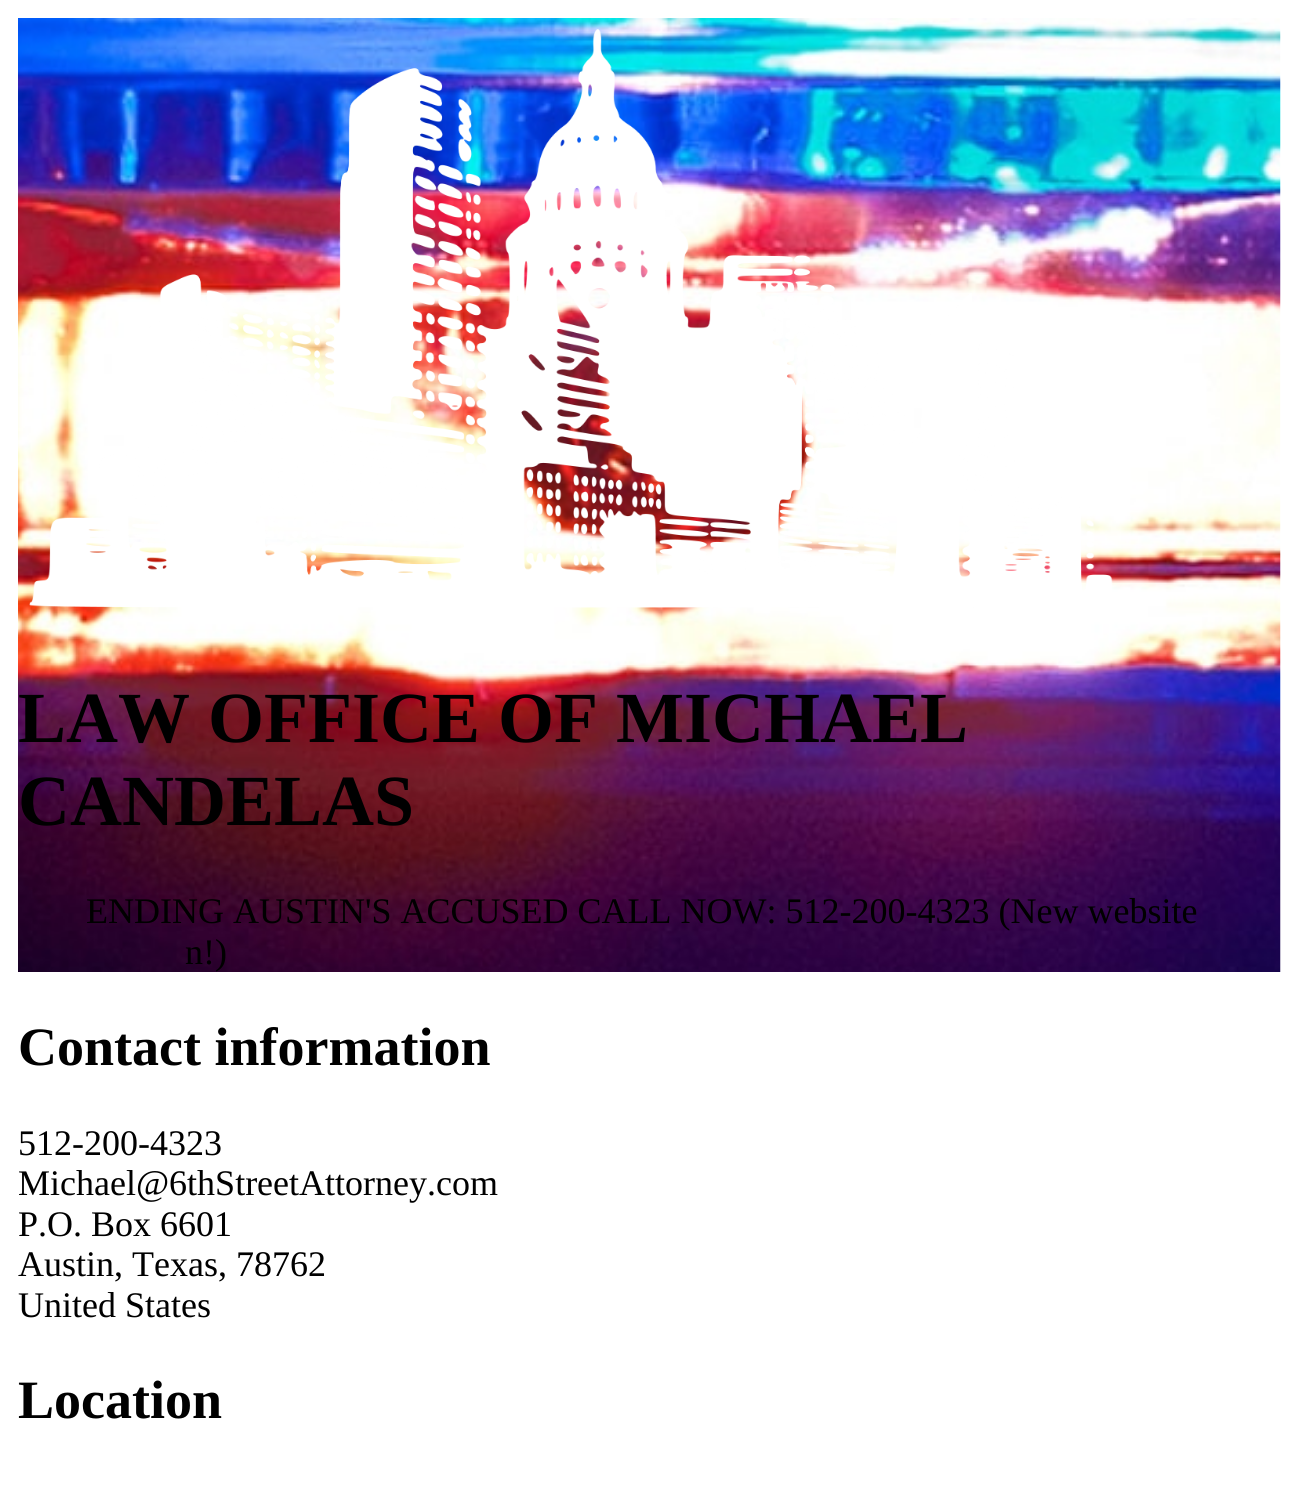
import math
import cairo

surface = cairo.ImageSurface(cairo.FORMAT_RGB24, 1298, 1494)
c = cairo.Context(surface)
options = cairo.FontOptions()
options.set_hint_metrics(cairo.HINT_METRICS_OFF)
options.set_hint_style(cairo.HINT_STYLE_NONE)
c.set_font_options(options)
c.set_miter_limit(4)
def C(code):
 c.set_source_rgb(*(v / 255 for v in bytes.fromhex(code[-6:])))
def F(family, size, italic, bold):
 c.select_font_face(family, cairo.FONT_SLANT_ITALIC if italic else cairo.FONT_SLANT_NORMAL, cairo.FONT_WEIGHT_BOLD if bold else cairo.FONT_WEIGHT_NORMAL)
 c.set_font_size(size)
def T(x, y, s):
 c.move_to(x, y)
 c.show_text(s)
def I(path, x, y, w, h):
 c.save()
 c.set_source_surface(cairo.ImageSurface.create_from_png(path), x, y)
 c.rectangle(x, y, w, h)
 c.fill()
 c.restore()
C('ffffff')
c.paint()
I('1.png',18,18,1263,954)
I('2.png',29,29,1084,579)
F('Liberation Serif',72,0,1)
C('000000')
T(18,742,'LAW OFFICE OF MICHAEL')
T(18,825,'CANDELAS')
F('Liberation Serif',36,0,0)
T(86,923,'ENDING AUSTIN\'S ACCUSED CALL NOW: 512-200-4323 (New website')
T(185,964,'n!)')
F('Liberation Serif',54,0,1)
T(18,1065,'Contact information')
F('Liberation Serif',36,0,0)
T(18,1155,'512-200-4323')
T(18,1195,'Michael@6thStreetAttorney.com')
T(18,1236,'P.O. Box 6601')
T(18,1276,'Austin, Texas, 78762')
T(18,1317,'United States')
F('Liberation Serif',54,0,1)
T(18,1418,'Location')
surface.write_to_png('o.png')
